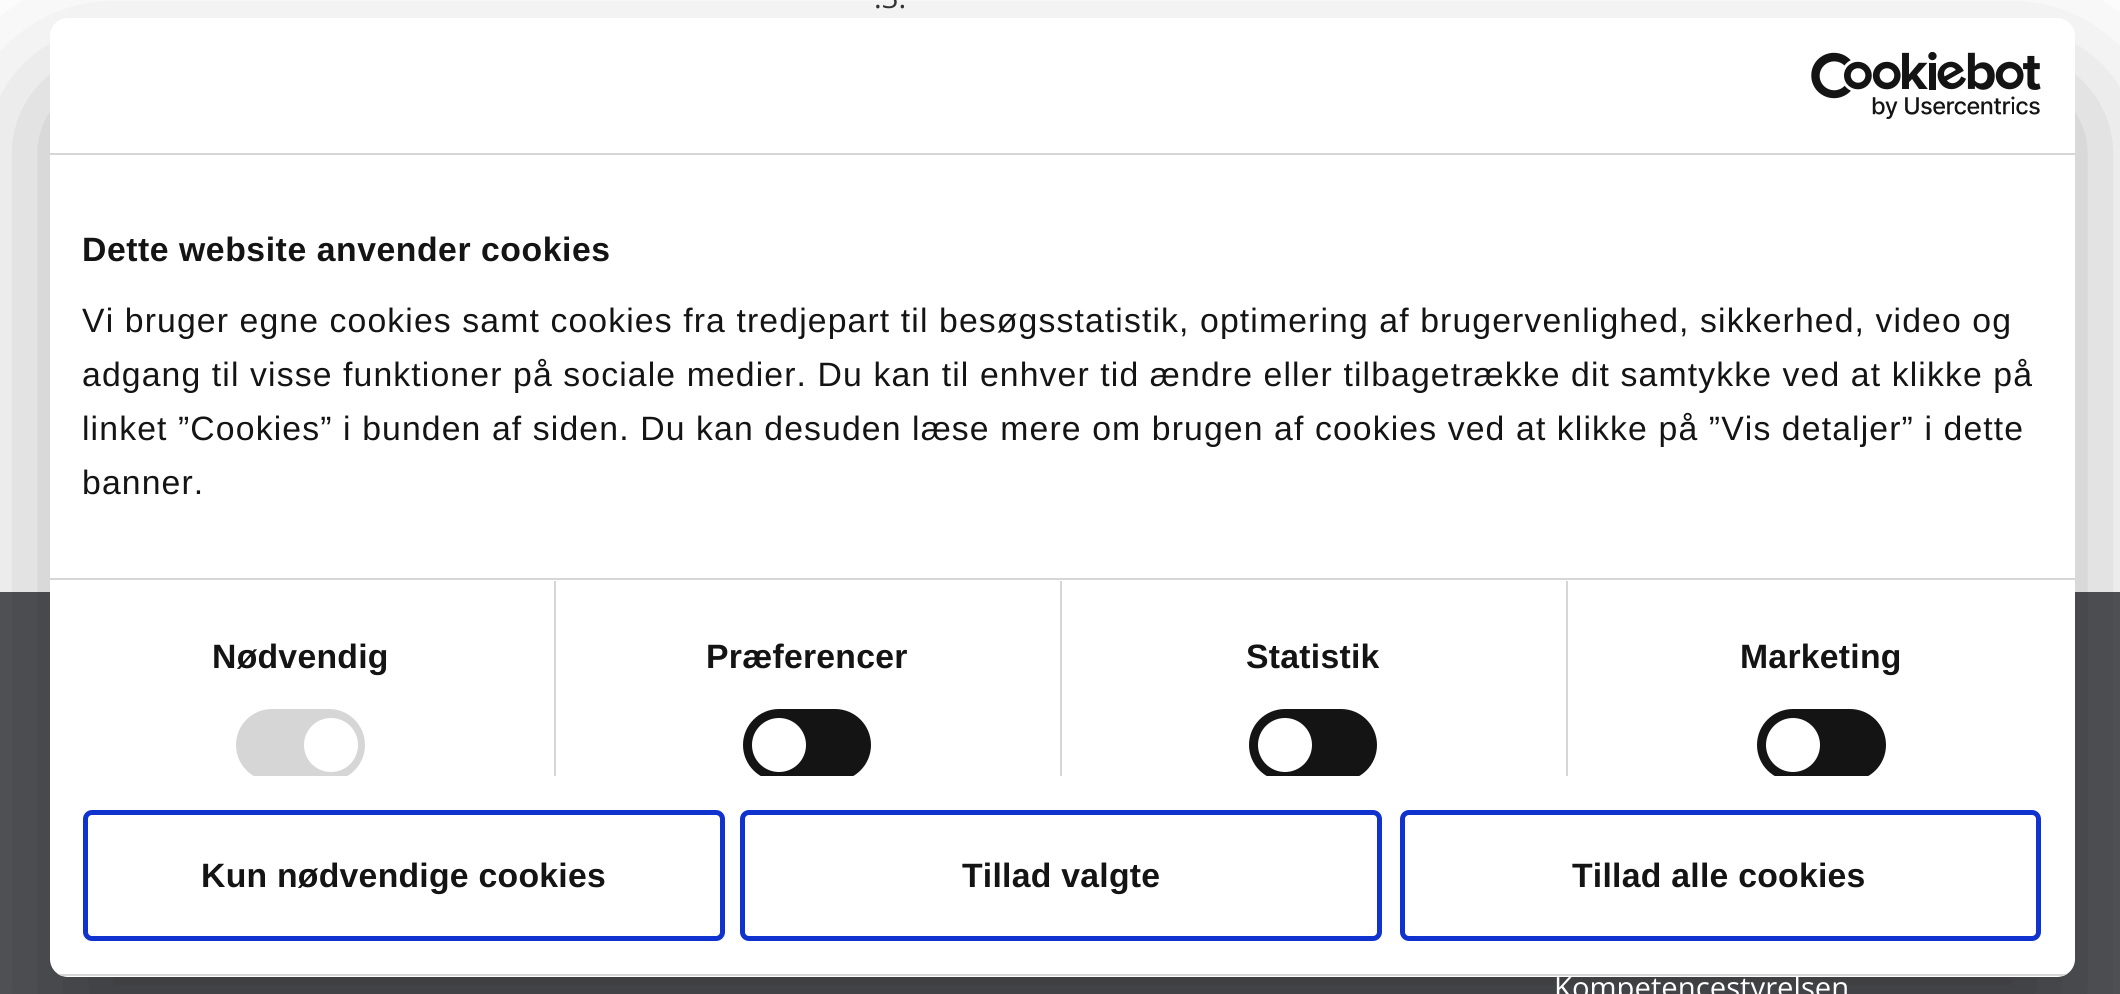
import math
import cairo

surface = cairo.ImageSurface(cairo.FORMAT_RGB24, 2120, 994)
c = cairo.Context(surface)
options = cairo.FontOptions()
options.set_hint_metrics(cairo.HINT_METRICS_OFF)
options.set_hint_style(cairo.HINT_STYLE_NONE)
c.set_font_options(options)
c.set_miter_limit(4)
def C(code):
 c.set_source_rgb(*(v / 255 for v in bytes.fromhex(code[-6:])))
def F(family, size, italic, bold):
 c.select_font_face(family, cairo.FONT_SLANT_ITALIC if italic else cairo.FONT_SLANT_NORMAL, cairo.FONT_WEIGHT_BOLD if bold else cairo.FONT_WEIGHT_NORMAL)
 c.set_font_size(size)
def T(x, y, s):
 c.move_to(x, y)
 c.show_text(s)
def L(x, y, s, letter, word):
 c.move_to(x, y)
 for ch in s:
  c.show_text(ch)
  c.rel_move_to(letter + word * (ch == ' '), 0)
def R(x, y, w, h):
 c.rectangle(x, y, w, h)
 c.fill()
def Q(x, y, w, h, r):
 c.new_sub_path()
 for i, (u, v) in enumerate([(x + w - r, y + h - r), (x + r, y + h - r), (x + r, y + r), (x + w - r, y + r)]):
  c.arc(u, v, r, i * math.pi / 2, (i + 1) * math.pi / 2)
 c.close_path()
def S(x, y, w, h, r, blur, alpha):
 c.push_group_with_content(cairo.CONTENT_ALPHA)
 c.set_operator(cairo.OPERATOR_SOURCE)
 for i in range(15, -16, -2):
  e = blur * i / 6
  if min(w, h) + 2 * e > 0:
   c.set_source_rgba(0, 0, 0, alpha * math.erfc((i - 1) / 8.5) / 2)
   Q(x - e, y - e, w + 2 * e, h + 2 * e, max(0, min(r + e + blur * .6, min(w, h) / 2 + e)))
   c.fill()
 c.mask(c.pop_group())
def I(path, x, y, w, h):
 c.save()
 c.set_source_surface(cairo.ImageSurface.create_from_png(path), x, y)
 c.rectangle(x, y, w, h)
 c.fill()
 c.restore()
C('ffffff')
c.paint()
F('Open Sans',29.25,0,0)
C('343536')
T(874,8,'.3.')
C('55565a')
R(0,592,2120,402)
C('000000')
S(50,90,2025,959,18,76.5,.3)
C('ffffff')
Q(50,18,2025,959,18)
c.fill()
C('d6d6d6')
R(50,153,2025,2)
I('1.png',1811,52,230,67)
R(50,578,2025,2)
F('Liberation Sans',33.75,0,1)
C('141414')
L(82,261,'Dette website anvender cookies',.55,0)
F('Liberation Sans',33.75,0,0)
L(82,332,'Vi bruger egne cookies samt cookies fra tredjepart til besøgsstatistik, optimering af brugervenlighed, sikkerhed, video og',1.12,0)
L(82,386,'adgang til visse funktioner på sociale medier. Du kan til enhver tid ændre eller tilbagetrække dit samtykke ved at klikke på',1.12,0)
L(82,440,'linket ”Cookies” i bunden af siden. Du kan desuden læse mere om brugen af cookies ved at klikke på ”Vis detaljer” i dette',1.12,0)
L(82,494,'banner.',1.12,0)
C('d6d6d6')
R(554,581,2,195)
F('Liberation Sans',33.75,0,1)
C('141414')
L(212,668,'Nødvendig',.25,0)
c.save()
c.rectangle(50,155,2025,621)
c.clip()
C('d6d6d6')
Q(236,709,129,72,36)
c.fill()
c.restore()
C('ffffff')
c.arc(331,745,27,0,2 * math.pi)
c.fill()
C('d6d6d6')
R(1060,581,2,195)
C('141414')
L(706,668,'Præferencer',.25,0)
c.save()
c.rectangle(50,155,2025,621)
c.clip()
Q(743,709,128,72,36)
c.fill()
c.restore()
C('ffffff')
c.arc(779,745,27,0,2 * math.pi)
c.fill()
C('d6d6d6')
R(1566,581,2,195)
C('141414')
L(1246,668,'Statistik',.25,0)
c.save()
c.rectangle(50,155,2025,621)
c.clip()
Q(1249,709,128,72,36)
c.fill()
c.restore()
C('ffffff')
c.arc(1285,745,27,0,2 * math.pi)
c.fill()
C('141414')
L(1740,668,'Marketing',.25,0)
c.save()
c.rectangle(50,155,2025,621)
c.clip()
Q(1757,709,129,72,36)
c.fill()
c.restore()
C('ffffff')
c.arc(1793,745,27,0,2 * math.pi)
c.fill()
F('Open Sans',29.25,0,0)
T(1554,998,'Kompetencestyrelsen')
c.save()
Q(50,18,2025,959,18)
c.clip()
C('d6d6d6')
R(50,974,2025,2)
c.restore()
Q(85.5,812.5,637,126,6.5)
C('1032cf')
c.set_line_width(5)
c.stroke()
F('Liberation Sans',33.75,0,1)
C('141414')
L(201,887,'Kun nødvendige cookies',.25,0)
Q(742.5,812.5,637,126,6.5)
C('1032cf')
c.stroke()
C('141414')
L(962,887,'Tillad valgte',.25,0)
Q(1402.5,812.5,636,126,6.5)
C('1032cf')
c.stroke()
C('141414')
L(1572,887,'Tillad alle cookies',.25,0)
surface.write_to_png('o.png')
